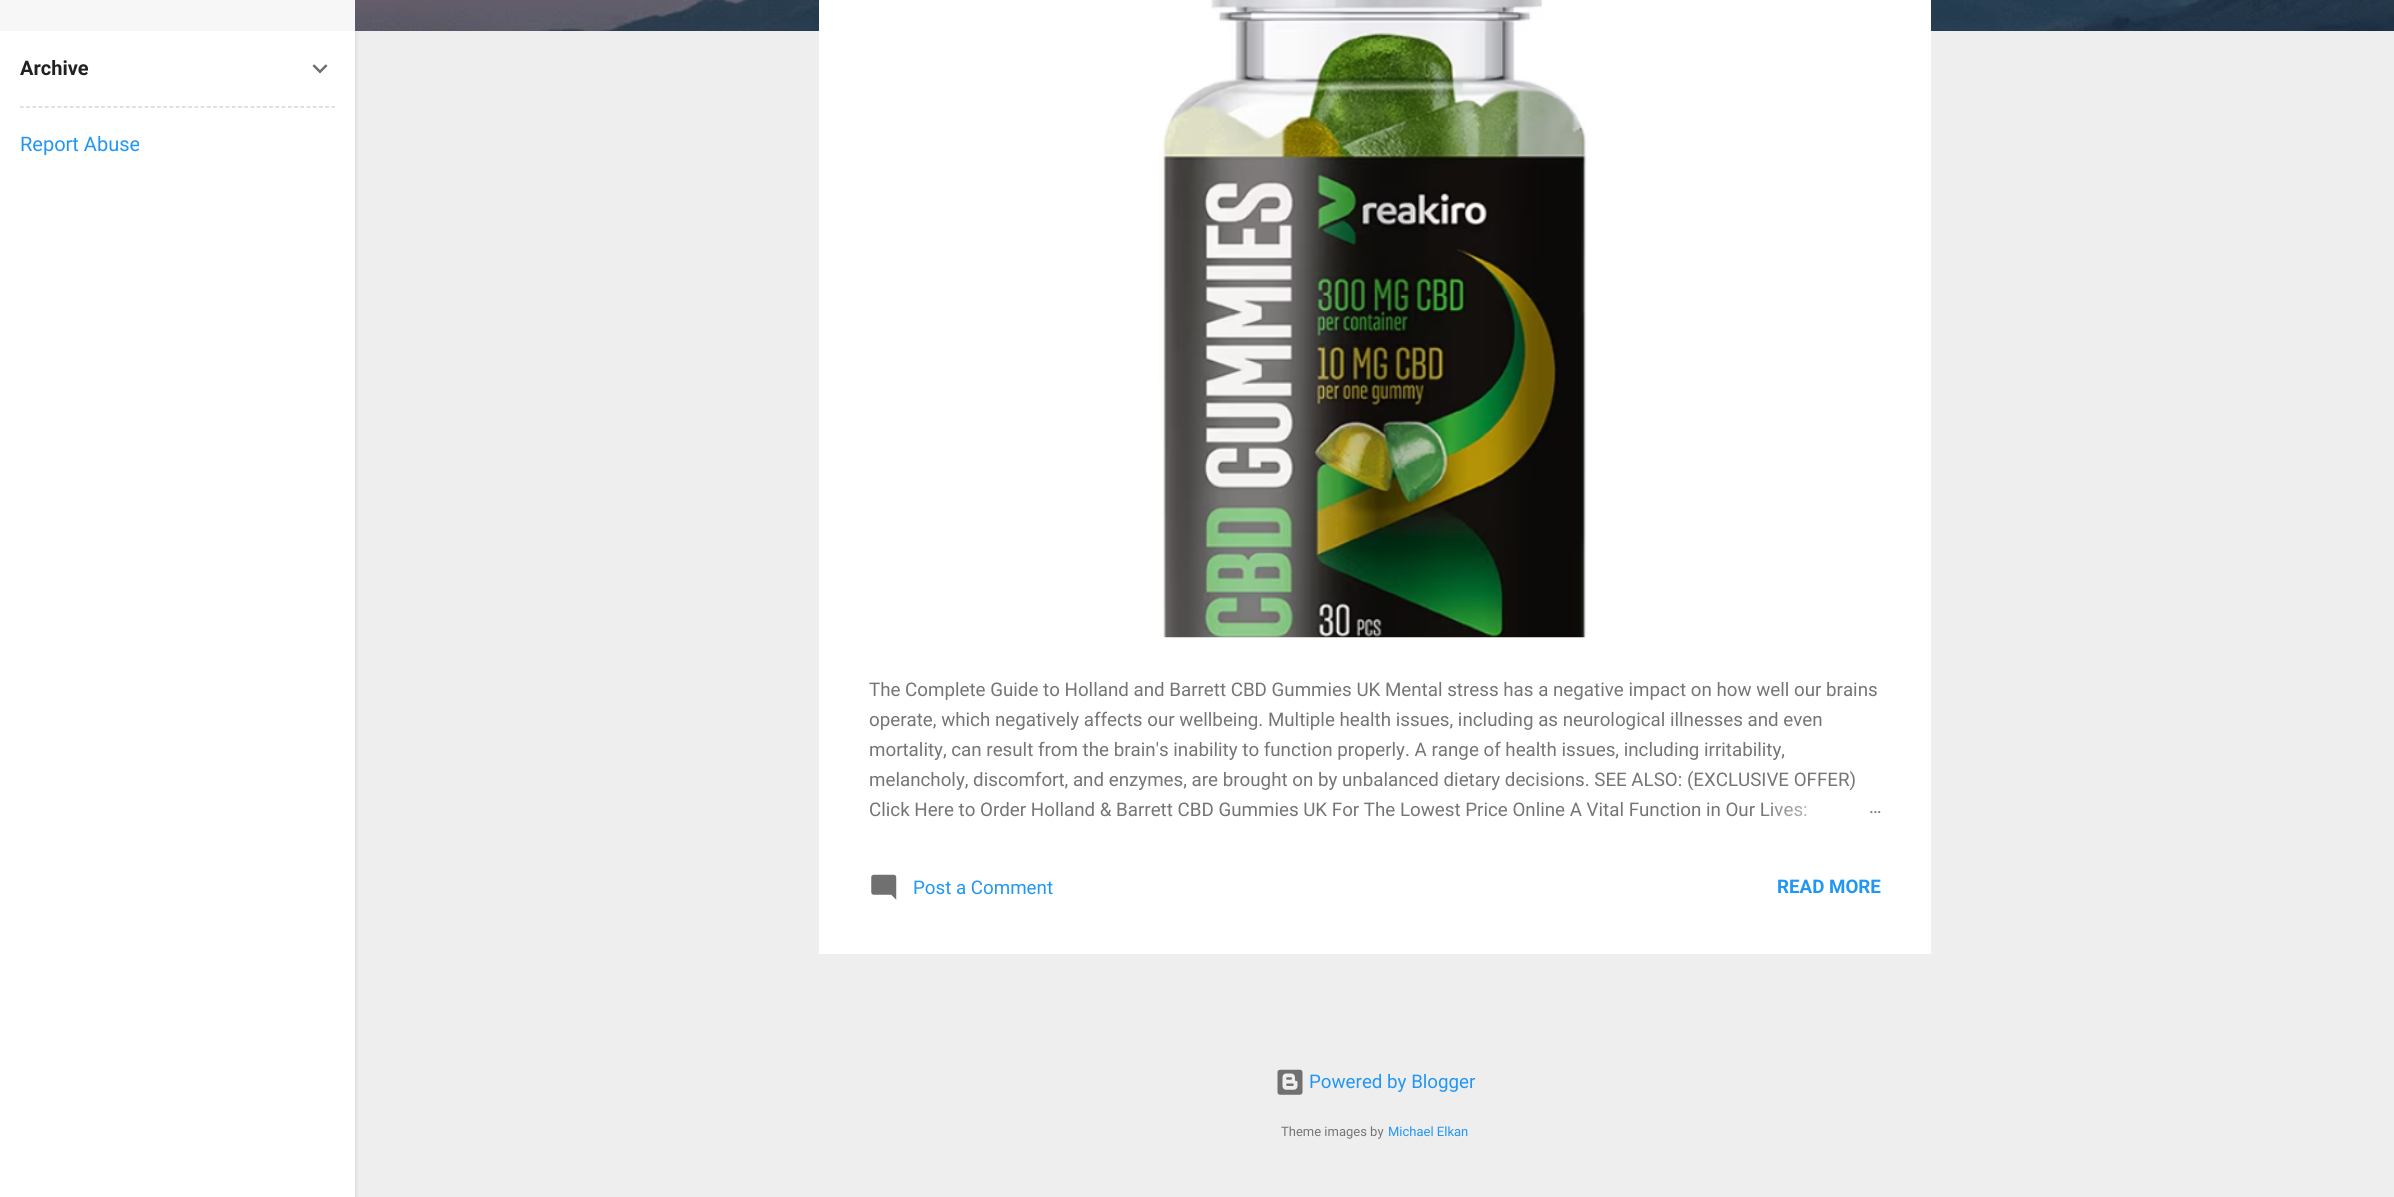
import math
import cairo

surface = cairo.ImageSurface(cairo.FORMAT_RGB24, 2394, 1197)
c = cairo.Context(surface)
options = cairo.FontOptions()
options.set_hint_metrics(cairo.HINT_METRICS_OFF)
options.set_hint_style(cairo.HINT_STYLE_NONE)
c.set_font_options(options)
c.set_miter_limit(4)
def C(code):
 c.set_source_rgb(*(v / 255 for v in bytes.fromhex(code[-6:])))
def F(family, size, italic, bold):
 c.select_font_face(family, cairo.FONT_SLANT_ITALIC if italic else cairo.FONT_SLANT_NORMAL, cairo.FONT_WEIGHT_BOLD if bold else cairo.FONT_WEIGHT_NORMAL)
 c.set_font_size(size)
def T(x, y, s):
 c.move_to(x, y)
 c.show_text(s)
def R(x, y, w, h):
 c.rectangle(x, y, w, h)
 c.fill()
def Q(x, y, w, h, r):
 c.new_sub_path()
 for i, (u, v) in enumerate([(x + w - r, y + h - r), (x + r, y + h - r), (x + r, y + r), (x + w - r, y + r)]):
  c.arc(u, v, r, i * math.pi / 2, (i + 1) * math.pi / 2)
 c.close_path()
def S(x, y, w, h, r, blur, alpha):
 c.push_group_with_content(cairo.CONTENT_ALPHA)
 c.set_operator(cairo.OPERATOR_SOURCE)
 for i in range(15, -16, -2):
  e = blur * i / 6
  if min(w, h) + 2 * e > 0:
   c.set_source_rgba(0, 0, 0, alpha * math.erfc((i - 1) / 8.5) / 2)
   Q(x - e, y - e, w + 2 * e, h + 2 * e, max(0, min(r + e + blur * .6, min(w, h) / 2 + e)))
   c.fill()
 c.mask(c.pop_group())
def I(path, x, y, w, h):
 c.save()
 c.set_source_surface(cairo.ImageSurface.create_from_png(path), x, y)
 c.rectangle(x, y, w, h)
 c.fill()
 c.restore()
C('eeeeee')
c.paint()
I('2.png',355,0,2039,31)
C('000000')
S(1,33,355,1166,0,2,.1)
C('ffffff')
R(0,31,355,1166)
C('f7f7f7')
R(0,0,355,31)
F('Roboto',20,0,1)
C('212121')
T(20,75,'Archive')
I('1.png',312,64,16,10)
c.new_path()
c.move_to(20,107)
c.line_to(335,107)
C('cccccc')
c.set_line_width(1.2)
c.set_dash([3.75,2.48])
c.stroke()
F('Roboto',20,0,0)
C('2196f3')
T(20,151,'Report Abuse')
C('ffffff')
R(819,0,1112,954)
I('3.png',1158,0,429,638)
F('Roboto',18.75,0,0)
C('757575')
T(869,696,'The Complete Guide to Holland and Barrett CBD Gummies UK Mental stress has a negative impact on how well our brains')
T(869,726,'operate, which negatively affects our wellbeing. Multiple health issues, including as neurological illnesses and even')
T(869,756,'mortality, can result from the brain\'s inability to function properly. A range of health issues, including irritability,')
T(869,786,'melancholy, discomfort, and enzymes, are brought on by unbalanced dietary decisions. SEE ALSO: (EXCLUSIVE OFFER)')
T(869,816,'Click Here to Order Holland & Barrett CBD Gummies UK For The Lowest Price Online A Vital Function in Our Lives:')
gradient = cairo.LinearGradient(1881,810,1761,810)
gradient.add_color_stop_rgba(0,1,1,1,1)
gradient.add_color_stop_rgba(.2,1,1,1,1)
gradient.add_color_stop_rgba(1,1,1,1,0)
c.set_source(gradient)
R(1763,802,44,15)
C('757575')
T(1869,813,'…')
I('4.png',871,874,26,26)
C('2196f3')
T(913,894,'Post a Comment')
F('Roboto',18.75,0,1)
T(1777,893,'READ MORE')
I('5.png',1277,1069,26,26)
F('Roboto',18.75,0,0)
T(1309,1088,'Powered by Blogger')
F('Roboto',13,0,0)
C('757575')
T(1281,1136,'Theme images by')
C('2196f3')
T(1388,1136,'Michael Elkan')
surface.write_to_png('o.png')
